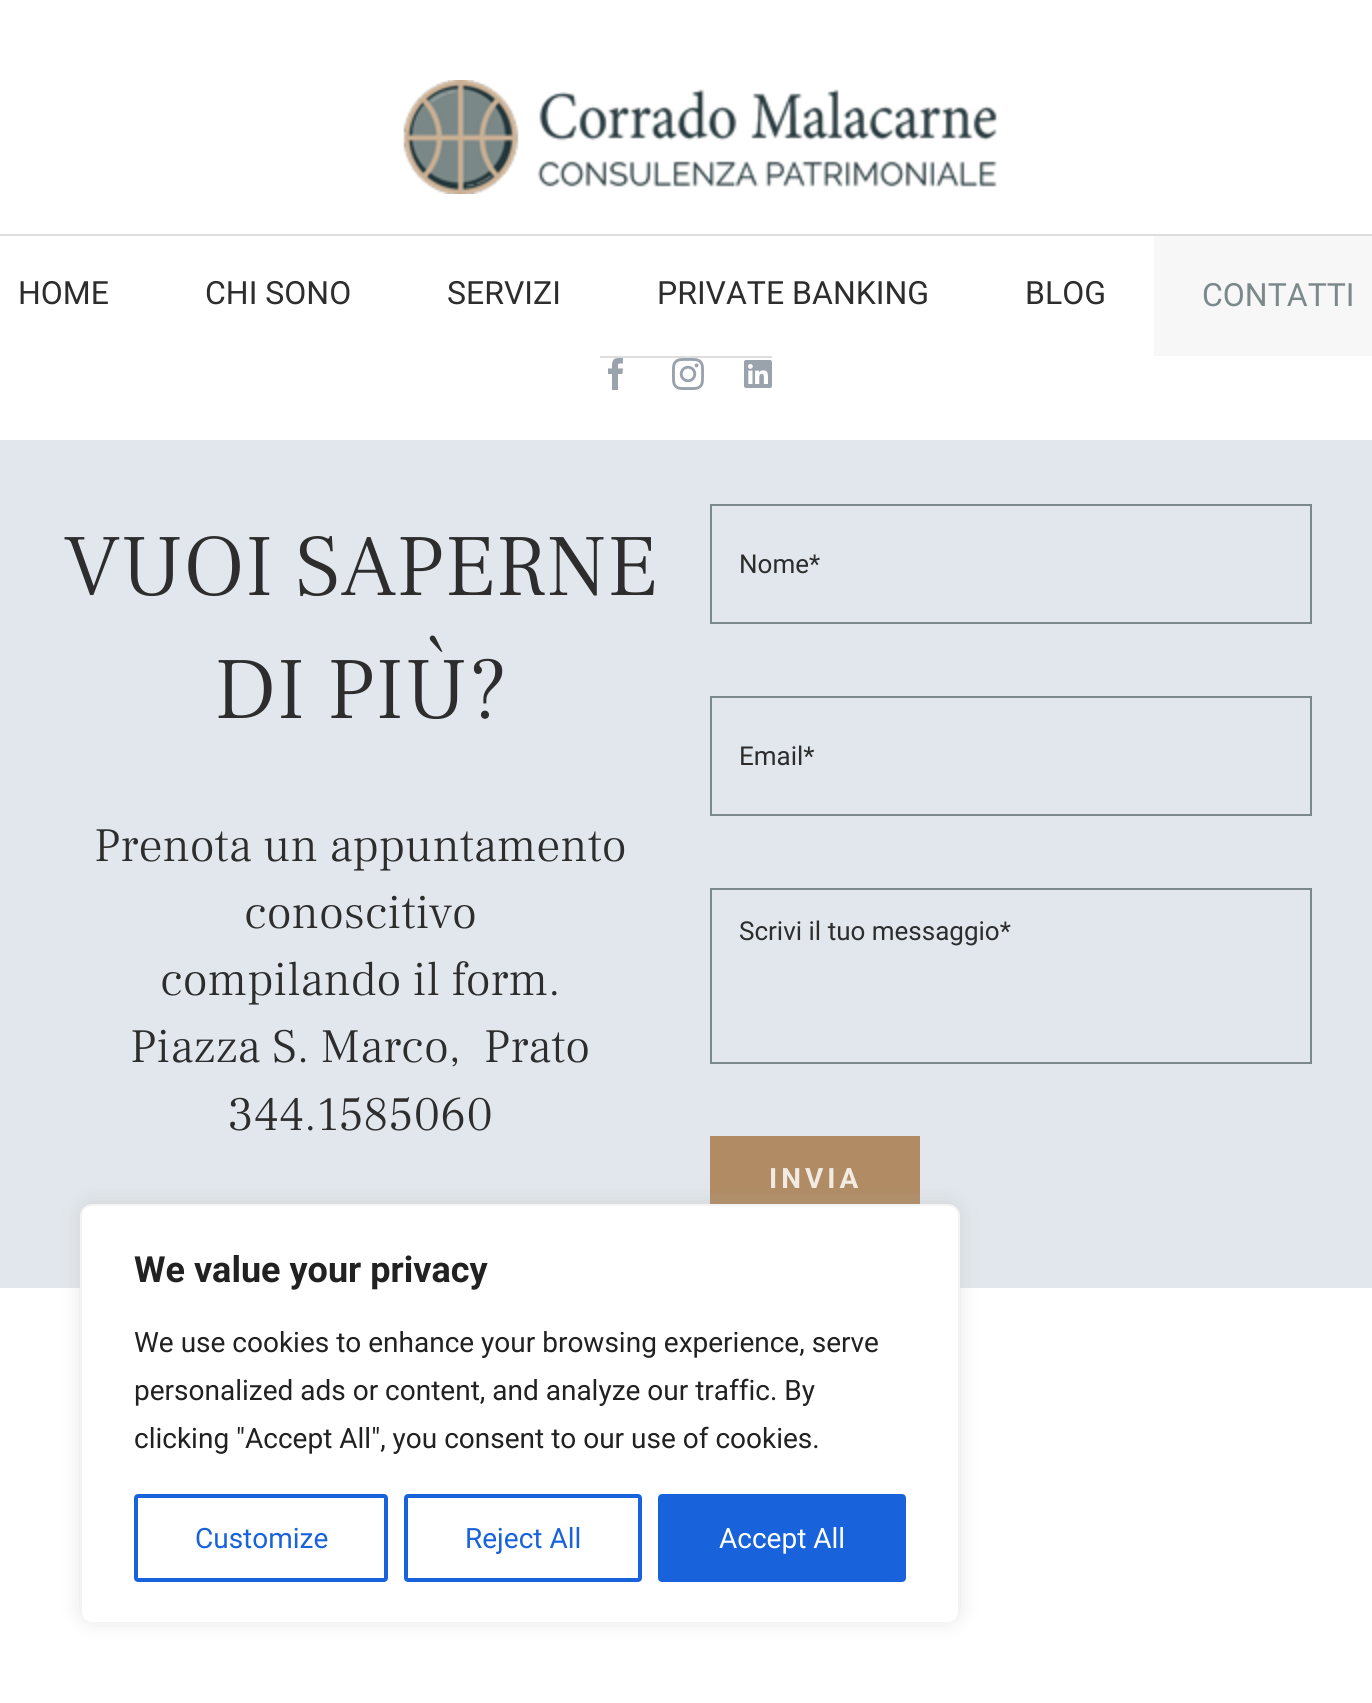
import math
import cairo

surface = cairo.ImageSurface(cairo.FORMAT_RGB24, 1372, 1703)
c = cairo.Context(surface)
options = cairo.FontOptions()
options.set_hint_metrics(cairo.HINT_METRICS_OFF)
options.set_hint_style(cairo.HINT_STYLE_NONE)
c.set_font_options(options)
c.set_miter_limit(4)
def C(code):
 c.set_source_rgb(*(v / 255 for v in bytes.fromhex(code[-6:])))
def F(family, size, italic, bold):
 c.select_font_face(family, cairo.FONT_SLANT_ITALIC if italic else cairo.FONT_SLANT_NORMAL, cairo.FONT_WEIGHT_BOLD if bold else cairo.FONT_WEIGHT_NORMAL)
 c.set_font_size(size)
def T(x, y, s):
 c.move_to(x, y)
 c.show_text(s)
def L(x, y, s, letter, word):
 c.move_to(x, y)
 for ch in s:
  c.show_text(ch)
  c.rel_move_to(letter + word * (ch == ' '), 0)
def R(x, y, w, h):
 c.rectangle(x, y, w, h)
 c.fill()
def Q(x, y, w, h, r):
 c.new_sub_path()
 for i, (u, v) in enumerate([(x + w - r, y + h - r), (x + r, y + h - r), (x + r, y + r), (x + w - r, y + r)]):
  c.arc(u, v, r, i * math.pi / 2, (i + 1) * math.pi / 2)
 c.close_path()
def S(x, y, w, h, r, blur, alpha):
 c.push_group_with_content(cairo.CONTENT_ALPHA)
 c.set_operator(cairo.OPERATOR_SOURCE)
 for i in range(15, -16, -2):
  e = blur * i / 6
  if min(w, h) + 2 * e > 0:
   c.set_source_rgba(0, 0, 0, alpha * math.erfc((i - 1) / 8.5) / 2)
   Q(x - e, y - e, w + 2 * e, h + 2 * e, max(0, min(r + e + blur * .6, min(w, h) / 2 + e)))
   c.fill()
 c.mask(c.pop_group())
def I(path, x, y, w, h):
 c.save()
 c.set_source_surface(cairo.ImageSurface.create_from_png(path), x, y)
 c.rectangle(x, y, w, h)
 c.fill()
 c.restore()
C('ffffff')
c.paint()
I('1.png',403,80,594,114)
C('dddddd')
R(0,234,1372,2)
F('Roboto',32,0,0)
C('2d2d2d')
T(18,304,'HOME')
T(205,304,'CHI SONO')
T(447,304,'SERVIZI')
T(657,304,'PRIVATE BANKING')
T(1025,304,'BLOG')
C('f7f7f7')
R(1154,236,218,120)
C('7c898b')
T(1202,306,'CONTATTI')
C('dddddd')
R(600,356,172,2)
I('2.png',608,358,15,32)
I('3.png',672,358,32,32)
I('4.png',744,360,28,28)
C('e2e7ed')
R(0,440,1372,848)
F('Frank Ruhl Libre Light',87.75,0,0)
C('2d2d2d')
T(64,595,'VUOI SAPERNE')
T(214,718,'DI PIÙ?')
F('Frank Ruhl Libre Light',48,0,0)
T(94,861,'Prenota un appuntamento')
T(244,928,'conoscitivo')
T(160,995,'compilando il form.')
T(130,1062,'Piazza S. Marco,  Prato')
T(228,1130,'344.1585060')
c.rectangle(711,505,600,118)
C('7c898b')
c.stroke()
F('Roboto',26,0,0)
C('2d2d2d')
T(739,573,'Nome*')
c.rectangle(711,697,600,118)
C('7c898b')
c.stroke()
C('2d2d2d')
T(739,765,'Email*')
c.rectangle(711,889,600,174)
C('7c898b')
c.stroke()
C('2d2d2d')
T(739,940,'Scrivi il tuo messaggio*')
C('b08b63')
R(710,1136,210,68)
F('Roboto',28,0,1)
C('f2ebe4')
L(769,1188,'INVIA',4,0)
C('acabab')
S(80,1202,880,420,12,10,.3)
C('ffffff')
Q(81,1205,878,418,11)
c.fill_preserve()
C('f4f4f4')
c.stroke()
F('Roboto',36,0,1)
C('212121')
T(134,1282,'We value your privacy')
F('Roboto',28,0,0)
T(134,1352,'We use cookies to enhance your browsing experience, serve')
T(134,1400,'personalized ads or content, and analyze our traffic. By')
T(134,1448,'clicking "Accept All", you consent to our use of cookies.')
Q(136,1496,250,84,2)
C('1863dc')
c.set_line_width(4)
c.stroke()
T(195,1548,'Customize')
Q(406,1496,234,84,2)
c.stroke()
T(465,1548,'Reject All')
Q(660,1496,244,84,2)
c.fill_preserve()
c.stroke()
C('ffffff')
T(719,1548,'Accept All')
surface.write_to_png('o.png')
